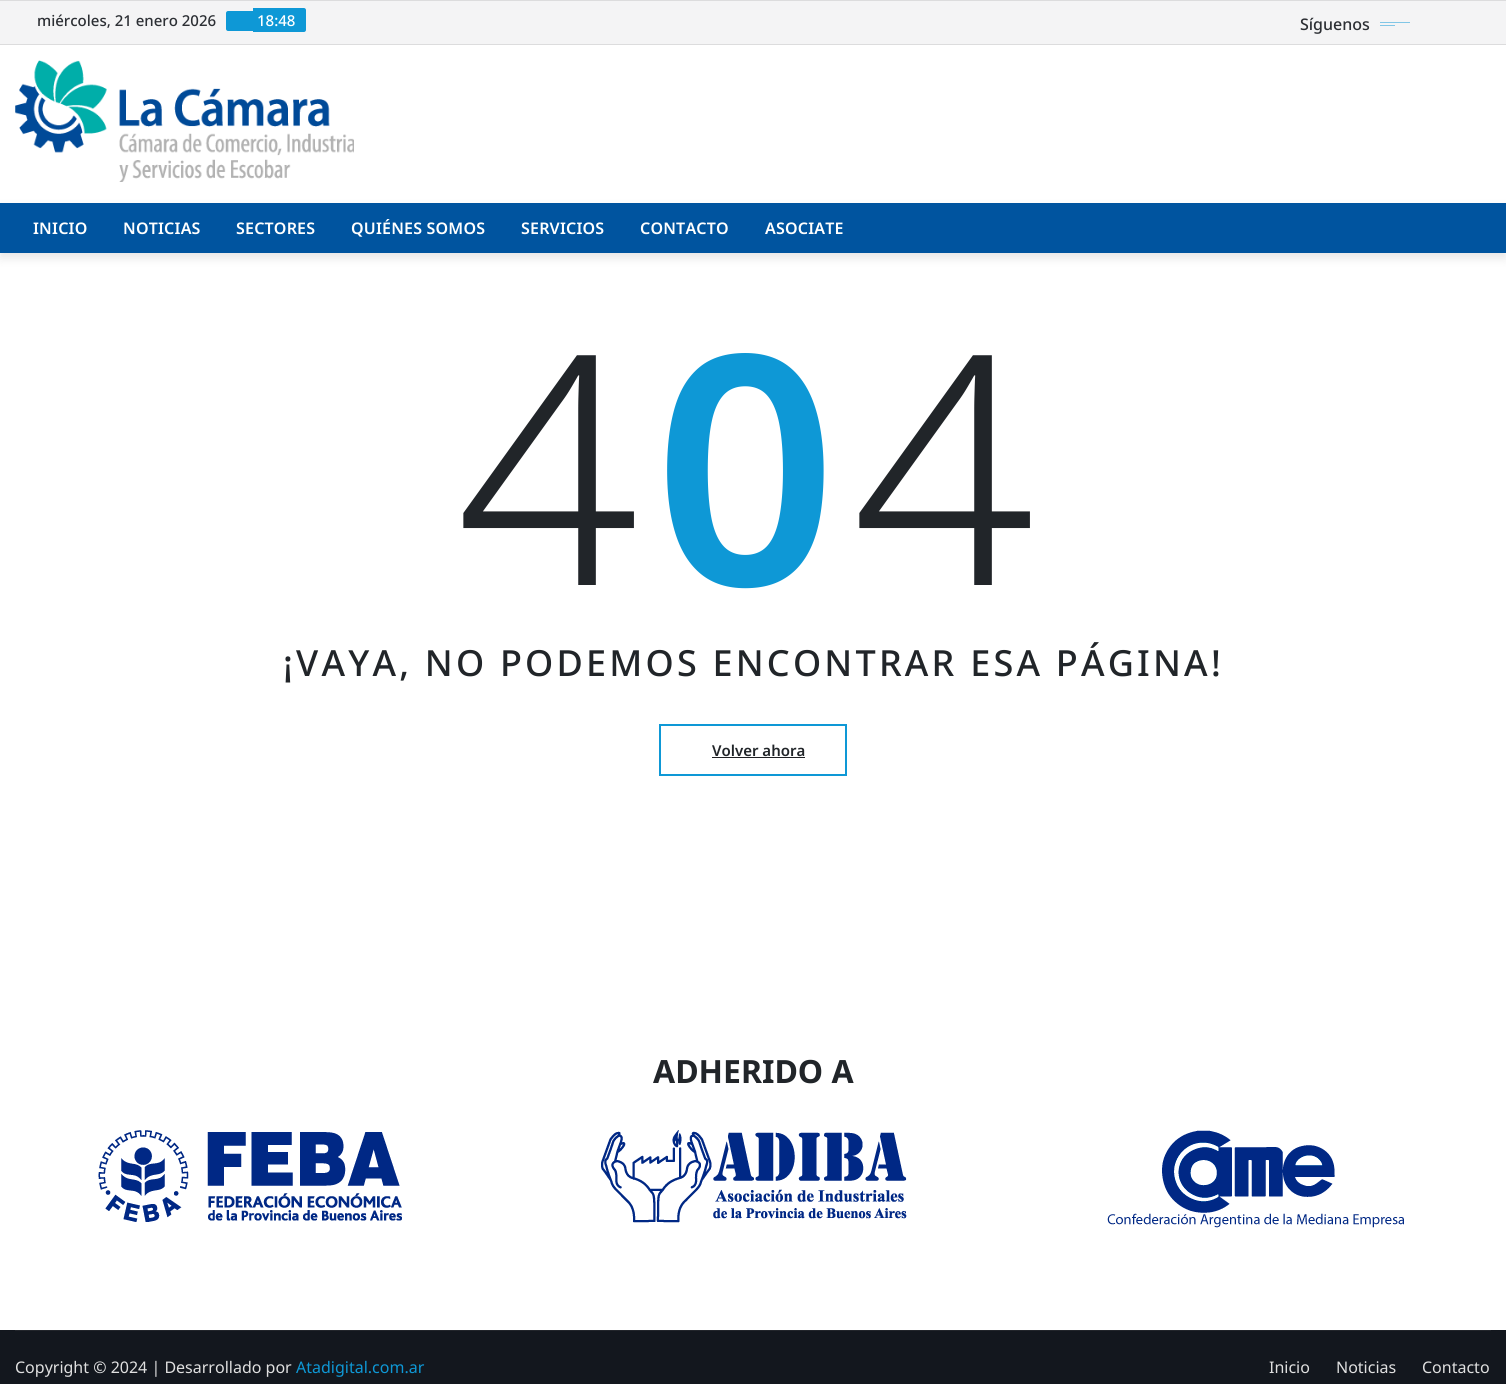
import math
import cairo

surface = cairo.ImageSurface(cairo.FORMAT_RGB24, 1506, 1384)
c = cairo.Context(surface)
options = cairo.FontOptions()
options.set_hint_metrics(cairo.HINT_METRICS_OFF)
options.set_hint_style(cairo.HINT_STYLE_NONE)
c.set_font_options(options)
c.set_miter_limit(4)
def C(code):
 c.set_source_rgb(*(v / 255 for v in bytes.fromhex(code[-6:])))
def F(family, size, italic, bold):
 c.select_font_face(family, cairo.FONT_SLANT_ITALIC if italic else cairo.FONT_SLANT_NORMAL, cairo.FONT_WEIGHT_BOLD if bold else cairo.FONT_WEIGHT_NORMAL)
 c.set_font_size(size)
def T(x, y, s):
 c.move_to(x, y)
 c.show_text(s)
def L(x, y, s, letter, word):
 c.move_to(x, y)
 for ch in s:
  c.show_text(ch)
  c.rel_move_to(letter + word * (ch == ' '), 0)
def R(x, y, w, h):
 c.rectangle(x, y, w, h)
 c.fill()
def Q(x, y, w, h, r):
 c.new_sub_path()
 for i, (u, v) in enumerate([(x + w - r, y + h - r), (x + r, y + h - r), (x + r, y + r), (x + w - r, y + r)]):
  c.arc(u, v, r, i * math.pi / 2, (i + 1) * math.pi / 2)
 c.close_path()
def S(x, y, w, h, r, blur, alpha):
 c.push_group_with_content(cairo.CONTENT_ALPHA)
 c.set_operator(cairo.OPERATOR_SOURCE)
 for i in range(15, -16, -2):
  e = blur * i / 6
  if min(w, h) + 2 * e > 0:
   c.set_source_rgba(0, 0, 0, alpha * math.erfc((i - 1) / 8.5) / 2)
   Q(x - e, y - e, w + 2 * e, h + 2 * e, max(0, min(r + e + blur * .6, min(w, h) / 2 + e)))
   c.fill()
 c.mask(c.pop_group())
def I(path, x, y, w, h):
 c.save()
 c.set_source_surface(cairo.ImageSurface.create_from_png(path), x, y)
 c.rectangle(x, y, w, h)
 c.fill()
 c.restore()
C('ffffff')
c.paint()
C('f4f4f5')
R(0,1,1506,43)
C('dcdcdd')
R(0,0,1506,1)
R(0,44,1506,1)
F('Noto Sans Medium',15,0,0)
C('2c2f34')
T(37,26,'miércoles, 21 enero 2026')
C('0e98d6')
c.new_path()
c.move_to(253,8)
c.line_to(304,8)
c.curve_to(305,8,306,9,306,10)
c.line_to(306,30)
c.curve_to(306,31,305,32,304,32)
c.line_to(253,32)
c.close_path()
c.fill()
C('ffffff')
T(257,26,'18:48')
C('0e98d6')
c.new_path()
c.move_to(228,11)
c.line_to(253,11)
c.line_to(253,31)
c.line_to(228,31)
c.curve_to(227,31,226,30,226,29)
c.line_to(226,13)
c.curve_to(226,12,227,11,228,11)
c.close_path()
c.fill()
F('Noto Sans Medium',16,0,0)
C('2c2f34')
T(1300,30,'Síguenos')
C('81c6e6')
R(1380,22,30,1)
R(1380,25,15,1)
I('1.png',15,60,339,122)
C('000000')
S(0,208,1506,50,0,5,.1)
C('00549f')
R(0,203,1506,50)
F('Noto Sans SemiBold',16,0,0)
C('ffffff')
L(33,234,'INICIO',.2,0)
L(123,234,'NOTICIAS',.2,0)
L(236,234,'SECTORES',.2,0)
L(351,234,'QUIÉNES SOMOS',.2,0)
L(521,234,'SERVICIOS',.2,0)
L(640,234,'CONTACTO',.2,0)
L(765,234,'ASOCIATE',.2,0)
F('Noto Sans Light',320,0,0)
C('212529')
L(456,585,'4',15,0)
F('Noto Sans SemiBold',320,0,0)
C('0e98d6')
L(654,585,'0',15,0)
F('Noto Sans Light',320,0,0)
C('212529')
L(852,585,'4',15,0)
F('Noto Sans Medium',36,0,0)
L(283,676,'¡VAYA, NO PODEMOS ENCONTRAR ESA PÁGINA!',3.2,0)
c.rectangle(660,725,186,50)
C('0e98d6')
c.stroke()
F('Noto Sans SemiBold',15,0,0)
C('212529')
T(712,756,'Volver ahora')
C('1f2024')
R(712,757,93,1)
F('Noto Sans',32,0,1)
C('212529')
T(653,1083,'ADHERIDO A')
I('2.png',98,1130,304,92)
I('3.png',601,1130,306,93)
I('4.png',1107,1130,297,98)
C('13171e')
R(0,1330,1506,54)
C('22252b')
R(15,1330,1476,1)
F('Noto Sans',16,0,0)
C('e0e0e0')
T(15,1373,'Copyright © 2024 | Desarrollado por')
C('0e98d6')
T(296,1373,'Atadigital.com.ar')
C('e0e0e0')
T(1269,1373,'Inicio')
T(1336,1373,'Noticias')
T(1422,1373,'Contacto')
surface.write_to_png('o.png')
